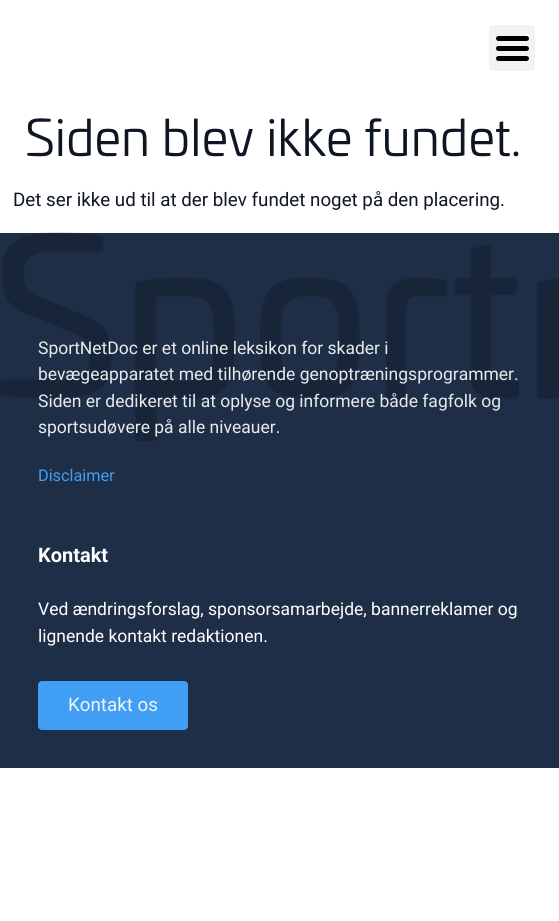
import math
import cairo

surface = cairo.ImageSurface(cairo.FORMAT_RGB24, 559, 921)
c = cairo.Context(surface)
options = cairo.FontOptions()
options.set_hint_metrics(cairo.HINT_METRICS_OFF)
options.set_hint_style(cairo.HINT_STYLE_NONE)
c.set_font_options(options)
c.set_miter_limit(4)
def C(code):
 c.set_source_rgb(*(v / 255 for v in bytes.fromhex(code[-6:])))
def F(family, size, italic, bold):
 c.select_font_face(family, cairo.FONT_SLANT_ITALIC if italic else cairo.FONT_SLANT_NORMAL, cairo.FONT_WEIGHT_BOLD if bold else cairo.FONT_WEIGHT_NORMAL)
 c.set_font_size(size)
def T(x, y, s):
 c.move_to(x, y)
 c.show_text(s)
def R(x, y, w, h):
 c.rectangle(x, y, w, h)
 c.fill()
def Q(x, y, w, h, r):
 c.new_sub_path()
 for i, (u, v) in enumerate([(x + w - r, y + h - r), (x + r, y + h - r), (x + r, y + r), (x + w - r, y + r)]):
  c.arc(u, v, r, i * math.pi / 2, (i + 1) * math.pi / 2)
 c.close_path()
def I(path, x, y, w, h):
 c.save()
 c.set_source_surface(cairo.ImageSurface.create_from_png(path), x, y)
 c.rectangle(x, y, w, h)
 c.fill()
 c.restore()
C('ffffff')
c.paint()
C('f2f2f2')
Q(489,25,46,46,4)
c.fill()
C('000000')
Q(496,46,33,5,2.5)
c.fill()
Q(496,36,33,5,2.5)
c.fill()
Q(496,56,33,5,2.5)
c.fill()
F('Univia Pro',50,0,0)
C('0e1623')
T(25,156,'Siden blev ikke fundet.')
F('Roboto',18.75,0,0)
T(13,206,'Det ser ikke ud til at der blev fundet noget på den placering.')
C('1e2e47')
R(0,233,559,535)
I('1.png',0,232,559,209)
F('Roboto',17.5,0,0)
C('e8eaec')
T(38,354,'SportNetDoc er et online leksikon for skader i')
T(38,380,'bevægeapparatet med tilhørende genoptræningsprogrammer.')
T(38,407,'Siden er dedikeret til at oplyse og informere både fagfolk og')
T(38,433,'sportsudøvere på alle niveauer.')
F('Roboto',16.25,0,0)
C('419ef5')
T(38,481,'Disclaimer')
F('Roboto',20,0,1)
C('ffffff')
T(38,562,'Kontakt')
F('Roboto',17.5,0,0)
T(38,615,'Ved ændringsforslag, sponsorsamarbejde, bannerreklamer og')
T(38,642,'lignende kontakt redaktionen.')
C('419ef5')
Q(38,681,150,49,4)
c.fill()
F('Roboto',18.75,0,0)
C('eff4f5')
T(68,711,'Kontakt os')
surface.write_to_png('o.png')
